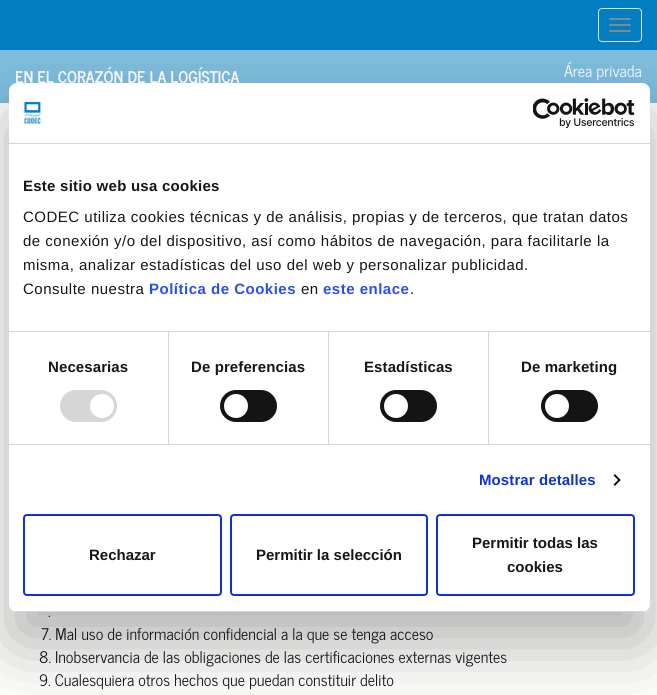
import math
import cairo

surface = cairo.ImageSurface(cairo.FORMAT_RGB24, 657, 695)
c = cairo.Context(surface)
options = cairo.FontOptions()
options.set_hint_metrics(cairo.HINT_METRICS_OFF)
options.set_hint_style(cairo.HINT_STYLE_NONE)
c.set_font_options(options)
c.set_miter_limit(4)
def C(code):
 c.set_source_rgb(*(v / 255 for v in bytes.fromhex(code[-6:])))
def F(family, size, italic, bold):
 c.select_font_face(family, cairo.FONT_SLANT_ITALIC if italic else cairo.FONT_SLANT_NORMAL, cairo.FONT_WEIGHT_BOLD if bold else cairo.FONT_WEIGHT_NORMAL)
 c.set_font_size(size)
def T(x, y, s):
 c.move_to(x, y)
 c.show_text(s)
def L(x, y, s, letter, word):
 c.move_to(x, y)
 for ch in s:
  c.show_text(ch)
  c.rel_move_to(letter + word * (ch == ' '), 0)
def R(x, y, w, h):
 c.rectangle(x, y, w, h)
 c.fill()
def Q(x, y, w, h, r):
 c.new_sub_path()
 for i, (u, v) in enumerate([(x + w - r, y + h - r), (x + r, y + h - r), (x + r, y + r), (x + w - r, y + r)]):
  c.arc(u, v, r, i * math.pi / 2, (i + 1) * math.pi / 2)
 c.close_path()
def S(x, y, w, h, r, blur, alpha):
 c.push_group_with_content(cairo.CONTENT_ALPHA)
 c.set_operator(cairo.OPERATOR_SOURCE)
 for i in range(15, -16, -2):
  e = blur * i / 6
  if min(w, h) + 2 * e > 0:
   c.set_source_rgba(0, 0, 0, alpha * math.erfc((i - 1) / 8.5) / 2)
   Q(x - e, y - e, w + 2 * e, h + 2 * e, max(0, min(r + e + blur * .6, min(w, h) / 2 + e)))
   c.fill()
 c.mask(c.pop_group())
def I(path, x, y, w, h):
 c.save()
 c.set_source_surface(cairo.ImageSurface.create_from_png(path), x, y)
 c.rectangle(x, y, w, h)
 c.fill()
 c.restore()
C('fefefc')
c.paint()
C('007ec1')
R(0,0,657,50)
Q(598.5,8.5,43,33,3.5)
C('dddddd')
c.set_line_width(1)
c.stroke()
C('888888')
Q(609,18,22,2,1)
c.fill()
Q(609,24,22,2,1)
c.fill()
Q(609,30,22,2,1)
c.fill()
C('7fbedf')
R(0,50,657,53)
F('News Cycle',16,0,1)
C('ffffff')
T(15,83,'EN EL CORAZÓN DE LA LOGÍSTICA')
F('News Cycle',16,0,0)
T(564,77,'Área privada')
C('000000')
S(9,115,641,529,8,34,.3)
C('ffffff')
Q(9,83,641,529,8)
c.fill()
C('d6d6d6')
R(9,143,641,1)
I('1.png',23,101,18,23)
I('2.png',533,98,102,30)
R(9,331,641,1)
F('Liberation Sans',15,0,1)
C('151618')
L(23,191,'Este sitio web usa cookies',.25,0)
F('Liberation Sans',15,0,0)
L(23,222,'CODEC utiliza cookies técnicas y de análisis, propias y de terceros, que tratan datos',.5,0)
L(23,246,'de conexión y/o del dispositivo, así como hábitos de navegación, para facilitarle la',.5,0)
L(23,270,'misma, analizar estadísticas del uso del web y personalizar publicidad.',.5,0)
L(23,294,'Consulte nuestra',.5,0)
F('Liberation Sans',15,0,1)
C('2a4eef')
L(149,294,'Política de Cookies',.5,0)
F('Liberation Sans',15,0,0)
C('151618')
L(301,294,'en',.5,0)
F('Liberation Sans',15,0,1)
C('2a4eef')
L(323,294,'este enlace',.5,0)
F('Liberation Sans',15,0,0)
C('151618')
L(410,294,'.',.5,0)
C('d6d6d6')
R(9,444,641,1)
R(168,332,1,112)
F('Liberation Sans',15,0,1)
C('151618')
L(48,372,'Necesarias',.1,0)
C('d6d6d6')
Q(60,390,57,32,16)
c.fill()
C('ffffff')
c.arc(102,406,12,0,2 * math.pi)
c.fill()
C('d6d6d6')
R(328,332,1,112)
C('151618')
L(191,372,'De preferencias',.1,0)
C('141414')
Q(220,390,57,32,16)
c.fill()
C('ffffff')
c.arc(236,406,12,0,2 * math.pi)
c.fill()
C('d6d6d6')
R(488,332,1,112)
C('151618')
L(364,372,'Estadísticas',.1,0)
C('141414')
Q(380,390,57,32,16)
c.fill()
C('ffffff')
c.arc(396,406,12,0,2 * math.pi)
c.fill()
C('151618')
L(521,372,'De marketing',.1,0)
C('141414')
Q(541,390,57,32,16)
c.fill()
C('ffffff')
c.arc(557,406,12,0,2 * math.pi)
c.fill()
C('1032cf')
L(479,485,'Mostrar detalles',.1,0)
C('141414')
c.new_path()
c.move_to(615,474)
c.line_to(620.5,480)
c.line_to(619.5,481.5)
c.line_to(613.5,475.5)
c.close_path()
c.fill()
c.new_path()
c.move_to(619.5,478.5)
c.line_to(620.5,480)
c.line_to(615,486)
c.line_to(613.5,484.5)
c.close_path()
c.fill()
c.save()
Q(9,83,641,529,8)
c.clip()
C('d6d6d6')
R(9,611,641,1)
c.restore()
Q(24,515,197,80,3)
C('1032cf')
c.set_line_width(2)
c.stroke()
C('151618')
T(89,560,'Rechazar')
Q(231,515,196,80,3)
C('1032cf')
c.stroke()
C('151618')
T(256,560,'Permitir la selección')
Q(437,515,197,80,3)
C('1032cf')
c.stroke()
C('151618')
T(472,548,'Permitir todas las')
T(507,572,'cookies')
F('News Cycle',16,0,0)
T(48,617,'.')
T(41,640,'7. Mal uso de información confidencial a la que se tenga acceso')
T(39,663,'8. Inobservancia de las obligaciones de las certificaciones externas vigentes')
T(39,686,'9. Cualesquiera otros hechos que puedan constituir delito')
surface.write_to_png('o.png')
